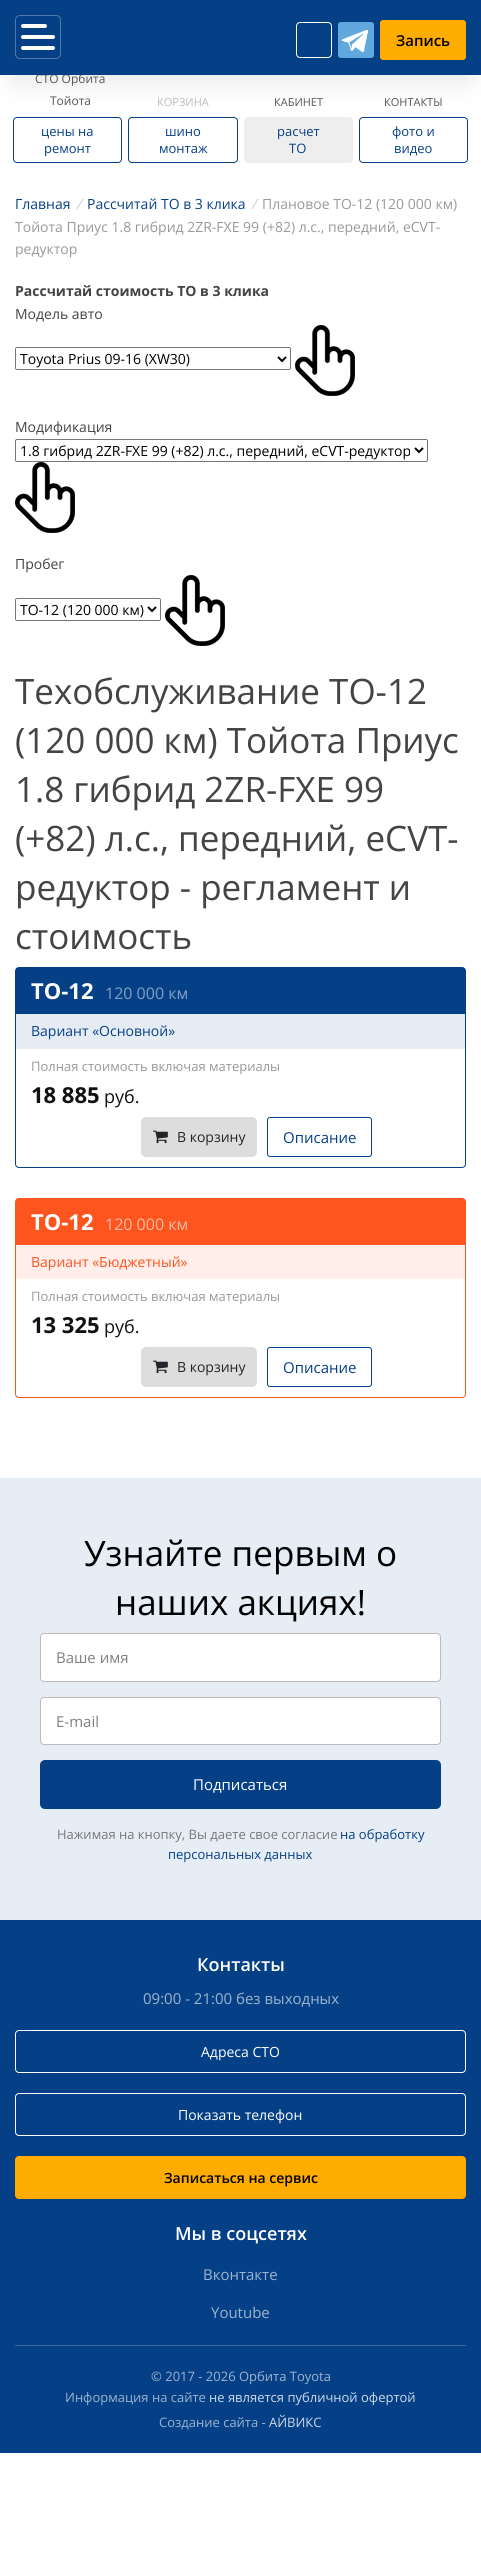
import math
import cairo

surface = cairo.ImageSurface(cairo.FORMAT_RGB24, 481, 2559)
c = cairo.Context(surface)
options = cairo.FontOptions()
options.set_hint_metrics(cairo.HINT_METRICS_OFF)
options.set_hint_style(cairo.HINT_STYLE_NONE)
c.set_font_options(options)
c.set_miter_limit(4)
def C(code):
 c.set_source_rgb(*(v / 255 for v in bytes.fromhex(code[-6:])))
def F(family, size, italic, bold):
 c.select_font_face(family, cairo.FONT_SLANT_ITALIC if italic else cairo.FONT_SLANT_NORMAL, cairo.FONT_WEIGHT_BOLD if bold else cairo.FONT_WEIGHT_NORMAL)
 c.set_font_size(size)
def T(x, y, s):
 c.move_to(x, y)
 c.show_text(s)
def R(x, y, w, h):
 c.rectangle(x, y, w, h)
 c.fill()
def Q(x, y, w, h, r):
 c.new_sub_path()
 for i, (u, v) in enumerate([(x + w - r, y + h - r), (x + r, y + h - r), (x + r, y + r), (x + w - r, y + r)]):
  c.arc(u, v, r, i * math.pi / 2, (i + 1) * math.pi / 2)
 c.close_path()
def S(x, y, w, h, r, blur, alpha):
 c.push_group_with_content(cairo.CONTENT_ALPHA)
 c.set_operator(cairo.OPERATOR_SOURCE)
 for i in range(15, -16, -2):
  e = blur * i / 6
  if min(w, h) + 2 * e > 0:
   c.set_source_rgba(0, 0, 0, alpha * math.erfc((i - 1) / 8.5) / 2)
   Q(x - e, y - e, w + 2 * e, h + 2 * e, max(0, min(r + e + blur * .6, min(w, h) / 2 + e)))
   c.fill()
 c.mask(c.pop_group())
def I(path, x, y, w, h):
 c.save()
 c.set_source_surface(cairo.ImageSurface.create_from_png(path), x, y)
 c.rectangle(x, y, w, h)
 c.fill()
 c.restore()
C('ffffff')
c.paint()
Q(13.5,117.5,108,45,3.5)
C('054086')
c.set_line_width(1)
c.stroke()
Q(128.5,117.5,109,45,3.5)
c.stroke()
C('eeeeee')
Q(244.5,117.5,108,45,3.5)
c.fill_preserve()
c.stroke()
Q(359.5,117.5,108,45,3.5)
C('054086')
c.stroke()
C('000000')
S(12,32,457,51,0,12.5,.09)
F('Open Sans',12,0,0)
C('555555')
T(35,83,'СТО Орбита')
C('054086')
R(0,0,481,75)
Q(15.5,15.5,45,43,4.5)
C('5079aa')
c.stroke()
C('ffffff')
Q(21,35,34,4,2)
c.fill()
Q(21,24,26,4,2)
c.fill()
Q(21,46,34,4,2)
c.fill()
Q(296.5,22.5,35,35,3.5)
c.stroke()
I('1.png',338,22,36,36)
C('ffac00')
Q(380,20,86,40,3)
c.fill()
F('Open Sans SemiBold',15,0,0)
C('000000')
T(396,46,'Запись')
F('Open Sans',12,0,0)
C('555555')
T(50,105,'Тойота')
F('Open Sans',11,0,0)
C('bbbbbb')
T(157,106,'КОРЗИНА')
C('555555')
T(274,106,'КАБИНЕТ')
T(384,106,'КОНТАКТЫ')
F('Open Sans',13,0,0)
C('054086')
T(41,136,'цены на')
T(44,153,'ремонт')
T(165,136,'шино')
T(159,153,'монтаж')
T(277,136,'расчет')
T(289,153,'ТО')
T(392,136,'фото и')
T(394,153,'видео')
F('Open Sans',14,0,0)
T(15,209,'Главная')
F('Open Sans',14,1,0)
C('cccccc')
T(76,209,'/')
F('Open Sans',14,0,0)
C('054086')
T(87,209,'Рассчитай ТО в 3 клика')
F('Open Sans',14,1,0)
C('cccccc')
T(251,209,'/')
F('Open Sans',14,0,0)
C('999999')
T(262,209,'Плановое ТО-12 (120 000 км)')
T(15,232,'Тойота Приус 1.8 гибрид 2ZR-FXE 99 (+82) л.с., передний, eCVT-')
T(15,254,'редуктор')
F('Open Sans',14,0,1)
C('444444')
T(15,296,'Рассчитай стоимость ТО в 3 клика')
F('Open Sans',14,0,0)
T(15,319,'Модель авто')
Q(15.5,347.5,275,22,1.5)
C('767676')
c.stroke()
c.new_path()
c.move_to(278,357)
c.line_to(282,361)
c.line_to(286,357)
C('000000')
c.set_line_width(2)
c.stroke()
T(20,364,'Toyota Prius 09-16 (XW30)')
I('2.png',295,325,60,71)
C('444444')
T(15,432,'Модификация')
Q(15.5,439.5,412,22,1.5)
C('767676')
c.set_line_width(1)
c.stroke()
c.new_path()
c.move_to(415,448)
c.line_to(419,452)
c.line_to(423,448)
C('000000')
c.set_line_width(2)
c.stroke()
T(20,456,'1.8 гибрид 2ZR-FXE 99 (+82) л.с., передний, eCVT-редуктор')
I('2.png',15,462,60,71)
C('444444')
T(15,569,'Пробег')
Q(15.5,598.5,145,22,1.5)
C('767676')
c.set_line_width(1)
c.stroke()
c.new_path()
c.move_to(148,607)
c.line_to(152,611)
c.line_to(156,607)
C('000000')
c.set_line_width(2)
c.stroke()
T(20,615,'ТО-12 (120 000 км)')
I('2.png',165,575,60,71)
F('Open Sans',35,0,0)
C('444444')
T(15,704,'Техобслуживание ТО-12')
T(15,753,'(120 000 км) Тойота Приус')
T(15,802,'1.8 гибрид 2ZR-FXE 99')
T(15,851,'(+82) л.с., передний, eCVT-')
T(15,900,'редуктор - регламент и')
T(15,949,'стоимость')
Q(15.5,967.5,450,200,3.5)
C('054086')
c.set_line_width(1)
c.stroke()
R(16,968,449,46)
F('Open Sans',22,0,1)
C('ffffff')
T(31,999,'ТО-12')
F('Open Sans',16,0,0)
C('82a0c3')
T(105,999,'120 000 км')
C('e6ecf3')
R(16,1014,449,35)
F('Open Sans',14,0,0)
C('054086')
T(31,1036,'Вариант «Основной»')
F('Open Sans',13,0,0)
C('999999')
T(31,1071,'Полная стоимость включая материалы')
F('Open Sans',22,0,1)
C('111111')
T(31,1103,'18 885')
F('Open Sans',18,0,0)
T(104,1103,'руб.')
C('dddddd')
Q(141,1117,116,40,5)
c.fill()
I('3.png',153,1130,15,14)
F('Open Sans',14,0,0)
C('212529')
T(177,1142,'В корзину')
Q(267.5,1117.5,104,39,2.5)
C('054086')
c.stroke()
F('Open Sans',15,0,0)
T(283,1143,'Описание')
Q(15.5,1198.5,450,199,3.5)
C('fe541e')
c.stroke()
R(16,1199,449,46)
F('Open Sans',22,0,1)
C('ffffff')
T(31,1230,'ТО-12')
F('Open Sans',16,0,0)
C('ffbba5')
T(105,1230,'120 000 км')
C('ffeee9')
R(16,1245,449,34)
F('Open Sans',14,0,0)
C('fe541e')
T(31,1267,'Вариант «Бюджетный»')
F('Open Sans',13,0,0)
C('999999')
T(31,1301,'Полная стоимость включая материалы')
F('Open Sans',22,0,1)
C('111111')
T(31,1333,'13 325')
F('Open Sans',18,0,0)
T(104,1333,'руб.')
C('dddddd')
Q(141,1347,116,40,5)
c.fill()
I('3.png',153,1360,15,14)
F('Open Sans',14,0,0)
C('212529')
T(177,1372,'В корзину')
Q(267.5,1347.5,104,39,2.5)
C('054086')
c.stroke()
F('Open Sans',15,0,0)
T(283,1373,'Описание')
C('e7edf4')
R(0,1478,481,442)
F('Open Sans',35,0,0)
C('000000')
T(84,1566,'Узнайте первым о')
T(115,1615,'наших акциях!')
C('ffffff')
Q(41,1634,399,47,2.5)
c.fill()
Q(40.5,1633.5,400,48,3.5)
C('bbbbbb')
c.stroke()
F('Open Sans',15,0,0)
C('808080')
T(56,1663,'Ваше имя')
C('ffffff')
Q(41,1698,399,46,2.5)
c.fill()
Q(40.5,1697.5,400,47,3.5)
C('bbbbbb')
c.stroke()
C('808080')
T(56,1727,'E-mail')
C('054086')
Q(40,1760,401,49,5)
c.fill()
C('ffffff')
T(193,1790,'Подписаться')
F('Open Sans',13,0,0)
C('777777')
T(57,1839,'Нажимая на кнопку, Вы даете свое согласие')
C('054086')
T(340,1839,'на обработку')
T(168,1859,'персональных данных')
R(0,1920,481,533)
F('Open Sans SemiBold',18,0,0)
C('ffffff')
T(197,1971,'Контакты')
F('Open Sans',15,0,0)
C('9bb3cf')
T(143,2004,'09:00 - 21:00 без выходных')
Q(15.5,2030.5,450,42,3.5)
C('ffffff')
c.stroke()
F('Open Sans',14,0,0)
T(201,2057,'Адреса СТО')
Q(15.5,2093.5,450,42,3.5)
c.stroke()
T(178,2120,'Показать телефон')
C('ffac00')
Q(15,2156,451,43,4)
c.fill()
F('Open Sans SemiBold',14,0,0)
C('000000')
T(164,2183,'Записаться на сервис')
F('Open Sans SemiBold',18,0,0)
C('ffffff')
T(175,2240,'Мы в соцсетях')
F('Open Sans',15,0,0)
C('9bb3cf')
T(203,2280,'Вконтакте')
T(211,2318,'Youtube')
C('37669e')
R(15,2345,451,1)
F('Open Sans',13,0,0)
C('9bb3cf')
T(151,2381,'© 2017 - 2026 Орбита Toyota')
T(65,2402,'Информация на сайте')
C('cdd9e7')
T(209,2402,'не является публичной офертой')
C('9bb3cf')
T(159,2427,'Создание сайта -')
C('cdd9e7')
T(269,2427,'АЙВИКС')
surface.write_to_png('o.png')
